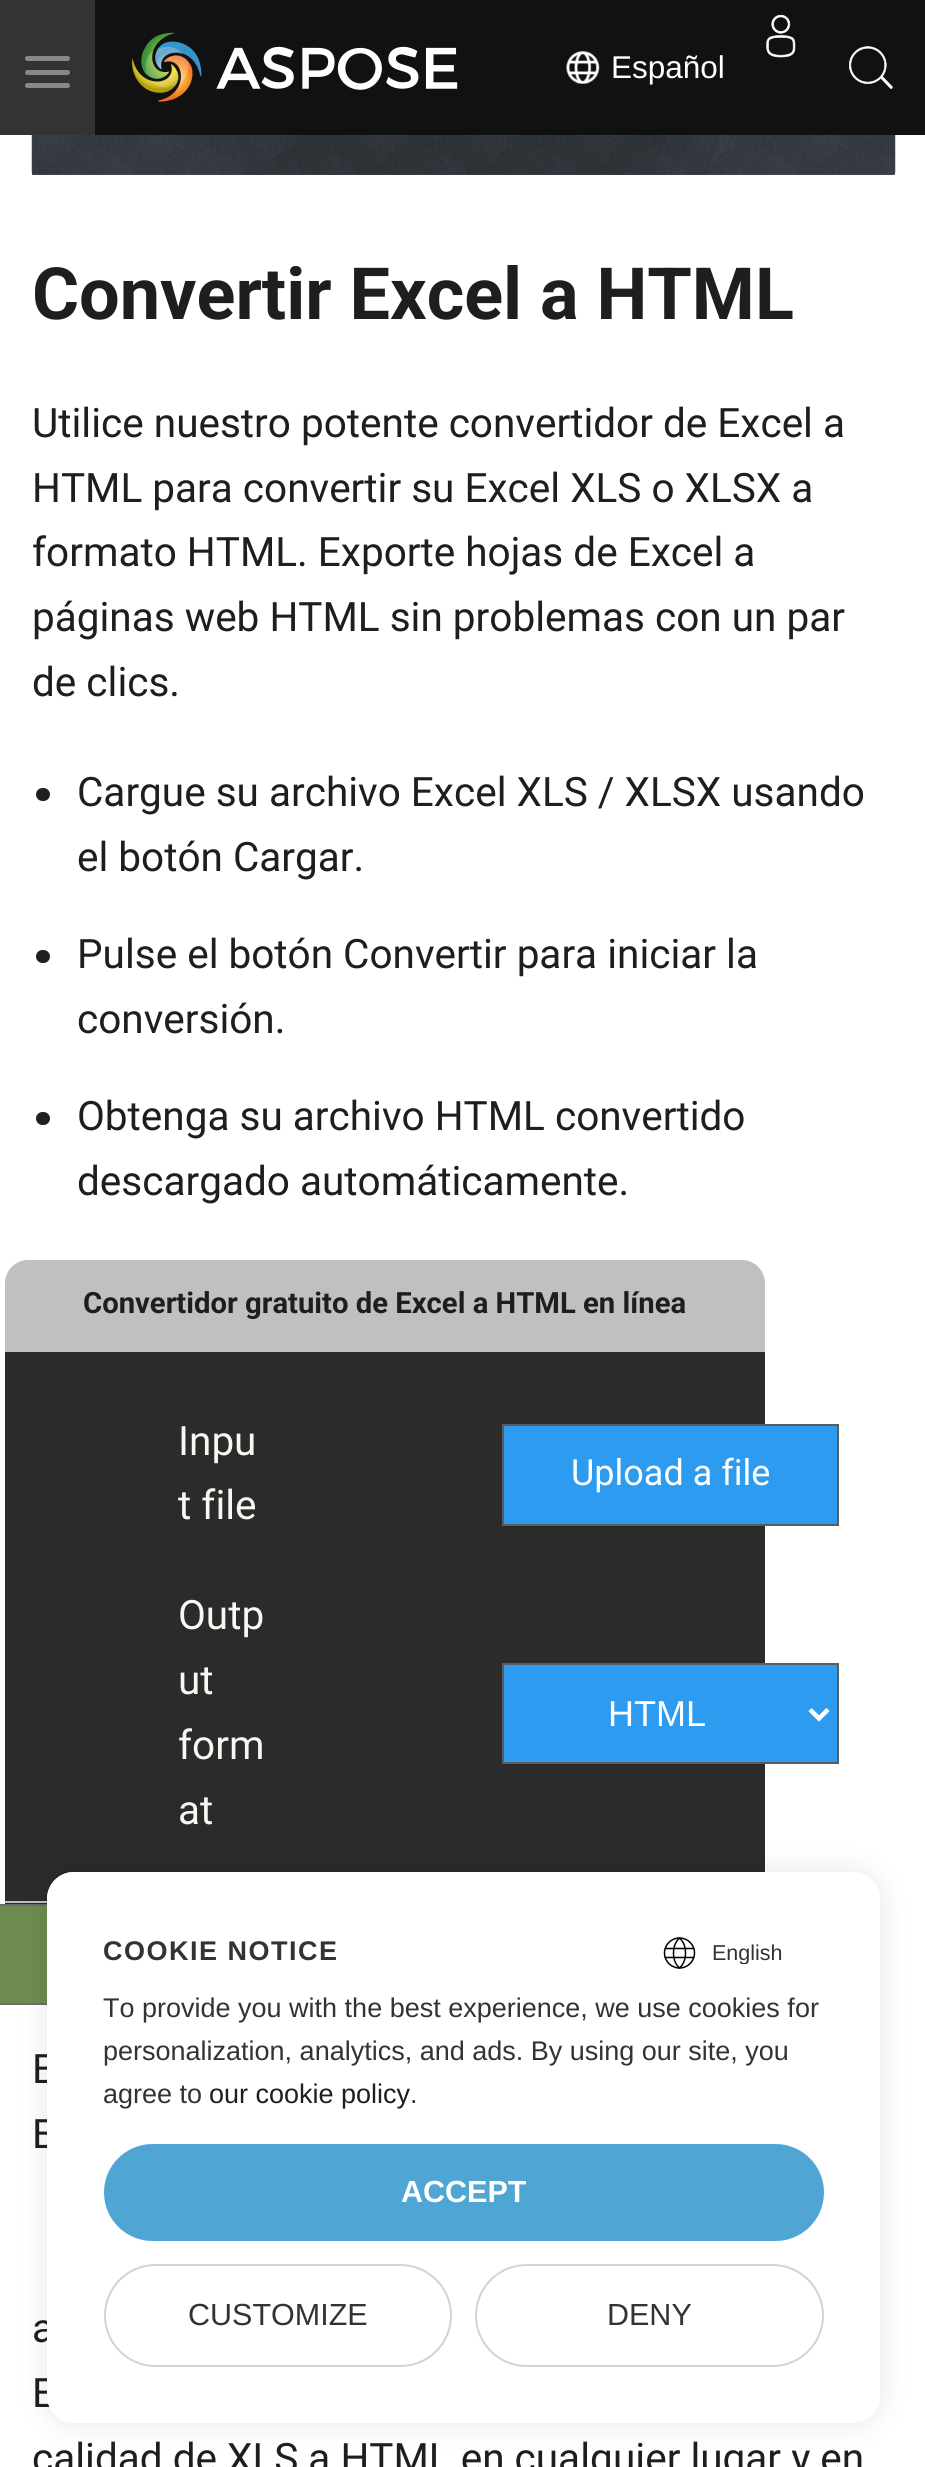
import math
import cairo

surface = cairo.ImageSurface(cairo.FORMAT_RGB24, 925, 2467)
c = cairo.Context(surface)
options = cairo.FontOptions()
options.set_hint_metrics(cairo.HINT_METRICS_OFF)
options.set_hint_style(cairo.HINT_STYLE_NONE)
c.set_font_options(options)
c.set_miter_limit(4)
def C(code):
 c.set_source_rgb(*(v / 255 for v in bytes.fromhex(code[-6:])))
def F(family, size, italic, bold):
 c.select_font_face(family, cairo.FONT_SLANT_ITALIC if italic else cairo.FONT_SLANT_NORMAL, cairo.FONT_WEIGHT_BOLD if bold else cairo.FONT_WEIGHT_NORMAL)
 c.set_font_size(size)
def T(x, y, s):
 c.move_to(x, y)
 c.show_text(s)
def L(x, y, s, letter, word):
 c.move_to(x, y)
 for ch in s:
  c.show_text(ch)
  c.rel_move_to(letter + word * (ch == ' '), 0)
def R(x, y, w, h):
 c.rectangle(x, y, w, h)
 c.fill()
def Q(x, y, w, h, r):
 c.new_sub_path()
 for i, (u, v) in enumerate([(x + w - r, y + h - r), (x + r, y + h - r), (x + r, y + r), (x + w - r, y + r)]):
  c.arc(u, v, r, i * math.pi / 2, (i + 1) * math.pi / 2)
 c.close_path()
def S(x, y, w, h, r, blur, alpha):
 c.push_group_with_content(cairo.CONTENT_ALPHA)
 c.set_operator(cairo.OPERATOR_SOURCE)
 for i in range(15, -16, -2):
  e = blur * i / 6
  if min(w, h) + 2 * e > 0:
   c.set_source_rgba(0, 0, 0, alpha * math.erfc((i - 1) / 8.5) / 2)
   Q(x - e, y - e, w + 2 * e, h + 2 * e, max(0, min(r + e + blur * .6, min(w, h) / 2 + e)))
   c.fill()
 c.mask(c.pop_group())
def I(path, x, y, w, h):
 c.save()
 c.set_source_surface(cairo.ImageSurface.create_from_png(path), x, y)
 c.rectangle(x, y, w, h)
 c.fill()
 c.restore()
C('ffffff')
c.paint()
C('111111')
R(95,0,830,135)
C('333333')
R(0,0,95,135)
C('888888')
Q(25,56,45,5,2.5)
c.fill()
Q(25,70,45,5,2.5)
c.fill()
Q(25,83,45,5,2.5)
c.fill()
I('1.png',132,32,326,70)
I('2.png',766,14,30,44)
I('3.png',566,51,34,33)
F('Liberation Sans',31.5,0,0)
C('ffffff')
T(611,78,'Español')
I('4.png',849,46,44,43)
I('5.png',31,135,865,40)
F('Roboto',72,0,1)
C('1e1e1e')
T(32,319,'Convertir Excel a HTML')
F('Roboto',40.5,0,0)
T(32,437,'Utilice nuestro potente convertidor de Excel a')
T(32,502,'HTML para convertir su Excel XLS o XLSX a')
T(32,566,'formato HTML. Exporte hojas de Excel a')
T(32,631,'páginas web HTML sin problemas con un par')
T(32,696,'de clics.')
C('1f1f1f')
Q(36,788,14,13,6.5)
c.fill()
C('1e1e1e')
T(77,806,'Cargue su archivo Excel XLS / XLSX usando')
T(77,871,'el botón Cargar.')
C('1f1f1f')
Q(36,950,14,13,6.5)
c.fill()
C('1e1e1e')
T(77,968,'Pulse el botón Convertir para iniciar la')
T(77,1033,'conversión.')
C('1f1f1f')
Q(36,1112,14,13,6.5)
c.fill()
C('1e1e1e')
T(77,1130,'Obtenga su archivo HTML convertido')
T(77,1195,'descargado automáticamente.')
C('c0c0c0')
c.new_path()
c.move_to(28,1260)
c.line_to(742,1260)
c.curve_to(754.5,1260,765,1270.5,765,1283)
c.line_to(765,1352)
c.line_to(5,1352)
c.line_to(5,1283)
c.curve_to(5,1270.5,15.5,1260,28,1260)
c.close_path()
c.fill()
F('Roboto',29.25,0,1)
C('1e1e1e')
T(83,1313,'Convertidor gratuito de Excel a HTML en línea')
C('2b2b2b')
R(5,1352,760,552)
F('Roboto',40.5,0,0)
C('f8f8f2')
T(178,1455,'Inpu')
T(178,1519,'t file')
C('2d9bf0')
c.rectangle(503,1425,335,100)
c.fill_preserve()
C('5c5c5c')
c.stroke()
F('Roboto',36,0,0)
C('ffffff')
T(571,1485,'Upload a file')
F('Roboto',40.5,0,0)
C('f8f8f2')
T(178,1629,'Outp')
T(178,1694,'ut')
T(178,1759,'form')
T(178,1824,'at')
C('2d9bf0')
c.rectangle(503,1664,335,99)
c.fill_preserve()
C('5c5c5c')
c.stroke()
c.new_path()
c.move_to(810,1709.5)
c.line_to(819,1718.5)
c.line_to(828,1709.5)
C('ffffff')
c.set_line_width(4.5)
c.stroke()
F('Liberation Sans',36,0,0)
T(608,1726,'HTML')
C('c0c0c0')
R(5,1901,42,2)
C('6e8b51')
R(0,1906,47,97)
c.rectangle(-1,1905,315,99)
C('6c6c6c')
c.set_line_width(2)
c.stroke()
F('Roboto',40.5,0,0)
C('1e1e1e')
T(32,2083,'E')
T(32,2148,'E')
T(32,2342,'a')
T(32,2407,'E')
T(32,2472,'calidad de XLS a HTML en cualquier lugar y en')
C('000000')
S(47,1872,833,551,27,14.5,.1)
C('ffffff')
Q(47,1872,833,551,27)
c.fill()
c.new_path()
c.move_to(74,1872)
c.line_to(853,1872)
c.curve_to(868,1872,880,1884,880,1899)
c.line_to(880,1976)
c.line_to(47,1976)
c.line_to(47,1899)
c.curve_to(47,1884,59,1872,74,1872)
c.close_path()
c.fill()
F('Liberation Sans',27,0,1)
C('333333')
L(103,1960,'COOKIE NOTICE',1.5,0)
I('6.png',663,1937,33,32)
c.save()
c.rectangle(711,1940,113,24)
c.clip()
F('Liberation Sans',21.5,0,0)
T(712,1960,'English')
c.restore()
F('Liberation Sans',27,0,0)
T(103,2017,'To provide you with the best experience, we use cookies for')
T(103,2060,'personalization, analytics, and ads. By using our site, you')
T(103,2103,'agree to')
C('1e1e1e')
T(209,2103,'our cookie policy')
C('333333')
T(410,2103,'.')
C('4fa5d3')
Q(104,2144,720,97,48.5)
c.fill()
F('Liberation Sans',30.5,0,1)
C('ffffff')
T(401,2202,'ACCEPT')
Q(105,2265,346,101,50.5)
C('d3d3d3')
c.stroke()
F('Liberation Sans',30.5,0,0)
C('333333')
T(188,2325,'CUSTOMIZE')
Q(476,2265,347,101,50.5)
C('d3d3d3')
c.stroke()
C('333333')
T(607,2325,'DENY')
surface.write_to_png('o.png')
